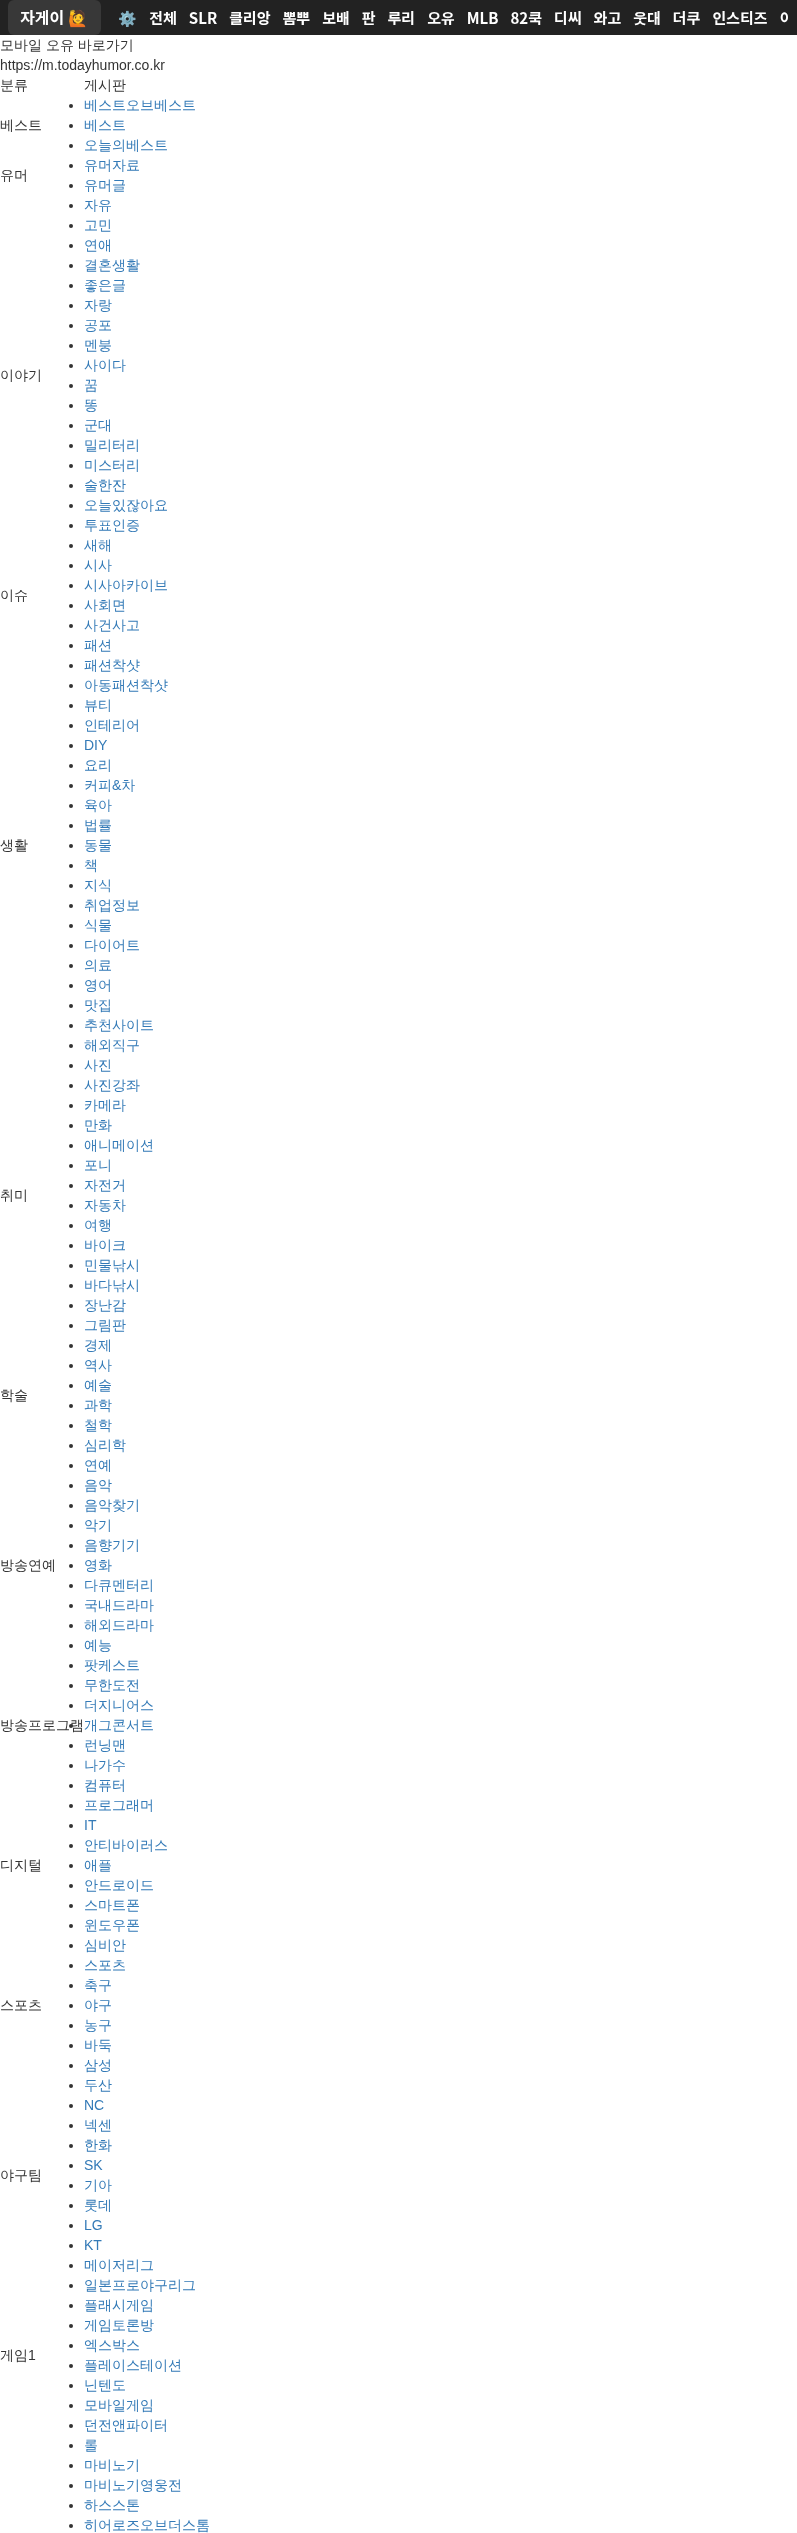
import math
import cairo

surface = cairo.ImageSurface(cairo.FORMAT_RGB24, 797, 2533)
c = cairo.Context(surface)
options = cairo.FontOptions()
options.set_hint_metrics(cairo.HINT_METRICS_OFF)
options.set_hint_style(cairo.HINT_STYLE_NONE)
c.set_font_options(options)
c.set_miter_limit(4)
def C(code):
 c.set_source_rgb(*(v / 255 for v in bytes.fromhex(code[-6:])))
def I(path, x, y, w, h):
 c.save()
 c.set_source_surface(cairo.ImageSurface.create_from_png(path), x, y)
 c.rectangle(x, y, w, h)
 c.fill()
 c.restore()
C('ffffff')
c.paint()
I('1.png',0,0,797,35)
I('2.png',0,35,797,2498)
surface.write_to_png('o.png')
